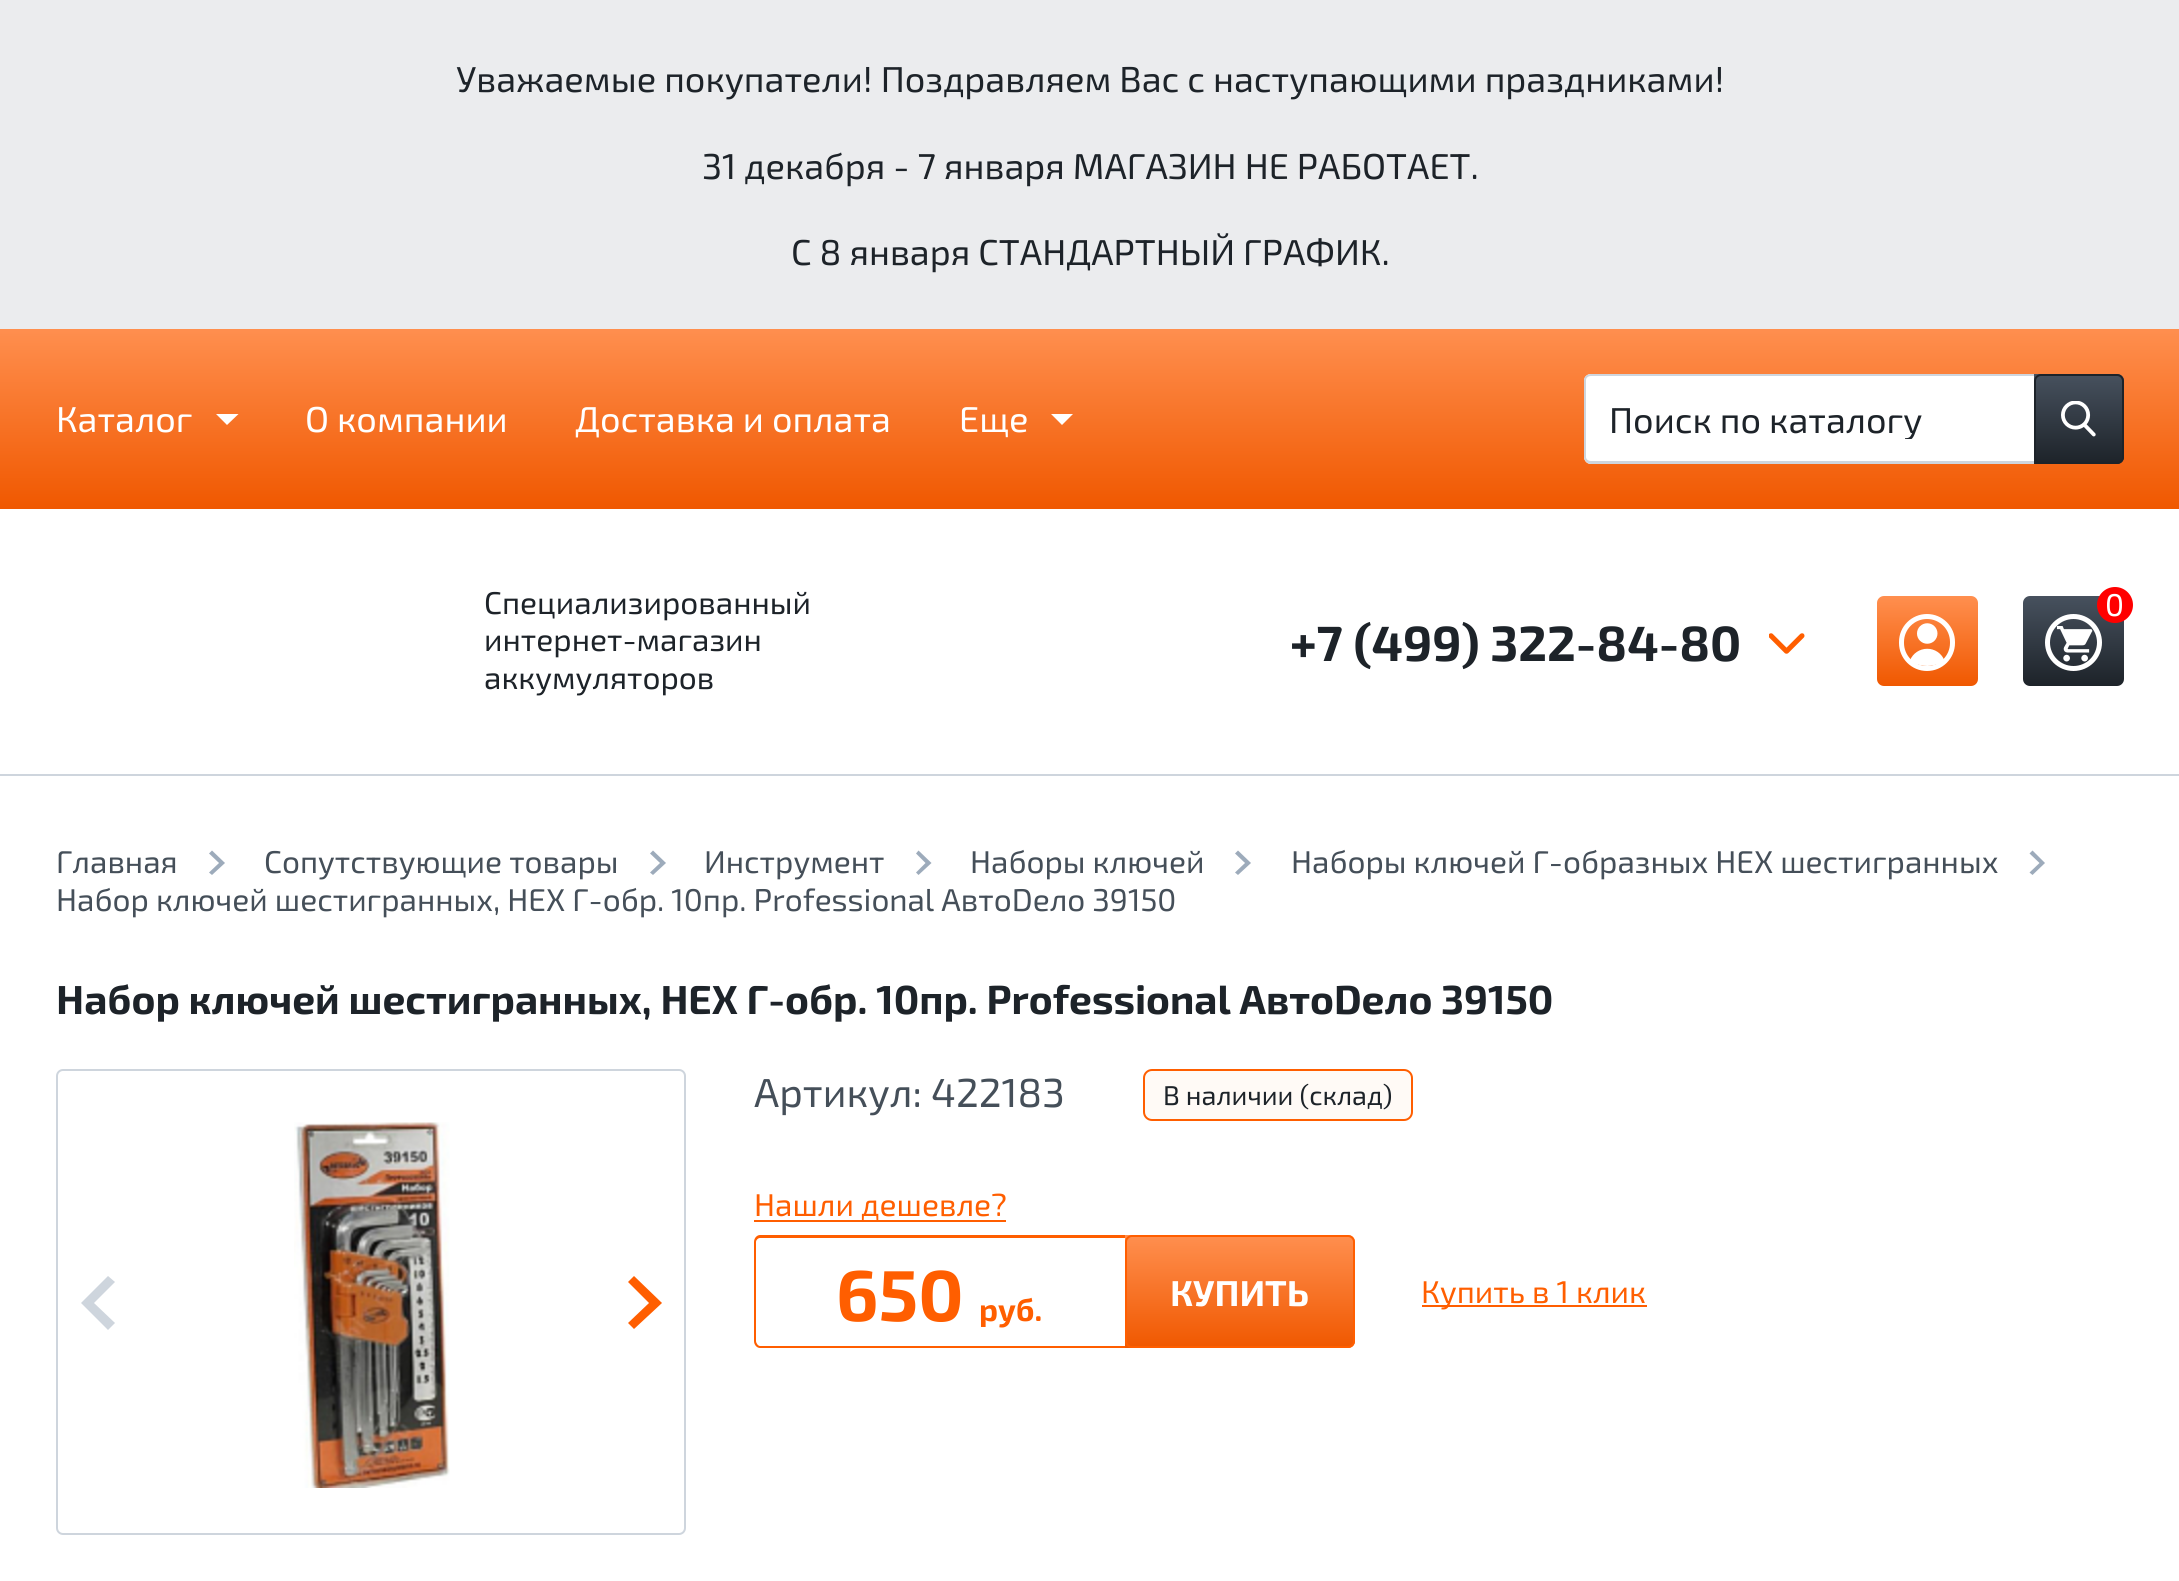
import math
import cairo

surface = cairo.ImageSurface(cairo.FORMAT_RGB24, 2179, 1581)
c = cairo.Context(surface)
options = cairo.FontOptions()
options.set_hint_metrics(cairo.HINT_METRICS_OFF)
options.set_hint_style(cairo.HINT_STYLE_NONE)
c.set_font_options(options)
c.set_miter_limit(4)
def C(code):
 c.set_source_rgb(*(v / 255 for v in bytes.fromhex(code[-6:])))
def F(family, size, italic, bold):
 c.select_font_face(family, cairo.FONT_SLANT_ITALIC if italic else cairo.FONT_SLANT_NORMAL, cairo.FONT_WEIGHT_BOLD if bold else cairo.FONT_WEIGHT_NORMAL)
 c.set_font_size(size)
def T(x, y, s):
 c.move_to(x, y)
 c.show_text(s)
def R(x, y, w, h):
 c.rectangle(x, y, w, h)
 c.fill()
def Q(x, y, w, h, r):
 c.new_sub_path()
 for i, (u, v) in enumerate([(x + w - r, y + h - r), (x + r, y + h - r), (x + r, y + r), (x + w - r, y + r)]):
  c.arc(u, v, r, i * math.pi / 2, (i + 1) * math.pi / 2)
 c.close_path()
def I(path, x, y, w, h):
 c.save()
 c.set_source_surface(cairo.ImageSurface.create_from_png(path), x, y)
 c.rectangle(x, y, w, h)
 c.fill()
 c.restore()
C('ffffff')
c.paint()
C('ebecee')
R(0,0,2179,329)
F('Exo 2',36,0,0)
C('1d2329')
T(456,92,'Уважаемые покупатели! Поздравляем Вас с наступающими праздниками!')
T(702,179,'31 декабря - 7 января МАГАЗИН НЕ РАБОТАЕТ.')
T(791,265,'С 8 января СТАНДАРТНЫЙ ГРАФИК.')
gradient = cairo.LinearGradient(1090,328,1090,509)
gradient.add_color_stop_rgba(0,1,0.561,0.31,1)
gradient.add_color_stop_rgba(1,0.941,0.345,0,1)
c.set_source(gradient)
R(0,329,2179,180)
C('ffffff')
T(56,432,'Каталог')
c.new_path()
c.move_to(216,414)
c.line_to(238.5,414)
c.line_to(227,425)
c.close_path()
c.fill()
T(305,432,'О компании')
T(575,432,'Доставка и оплата')
T(959,432,'Еще')
c.new_path()
c.move_to(1051,414)
c.line_to(1073,414)
c.line_to(1062,425)
c.close_path()
c.fill()
c.new_path()
c.move_to(1591,374)
c.line_to(2034,374)
c.line_to(2034,464)
c.line_to(1591,464)
c.curve_to(1587,464,1584,461,1584,457)
c.line_to(1584,381)
c.curve_to(1584,377,1587,374,1591,374)
c.close_path()
c.fill()
C('ced5dd')
c.set_fill_rule(cairo.FILL_RULE_EVEN_ODD)
c.new_path()
c.move_to(1591,374)
c.line_to(2034,374)
c.line_to(2034,464)
c.line_to(1591,464)
c.curve_to(1587,464,1584,460,1584,457)
c.line_to(1584,380)
c.curve_to(1584,377,1587,374,1591,374)
c.close_path()
c.move_to(1591,376)
c.line_to(2034,376)
c.line_to(2034,461)
c.line_to(1591,461)
c.curve_to(1588,461,1586,459,1586,457)
c.line_to(1586,380)
c.curve_to(1586,378,1588,376,1591,376)
c.close_path()
c.fill()
c.save()
c.set_fill_rule(cairo.FILL_RULE_WINDING)
c.rectangle(1609,396,403,43)
c.clip()
C('1d2329')
T(1609,433,'Поиск по каталогу')
c.restore()
gradient = cairo.LinearGradient(2079,374,2079,464)
gradient.add_color_stop_rgba(0,0.278,0.318,0.369,1)
gradient.add_color_stop_rgba(1,0.114,0.137,0.161,1)
c.set_source(gradient)
c.new_path()
c.move_to(2034,374)
c.line_to(2117,374)
c.curve_to(2121,374,2124,377,2124,381)
c.line_to(2124,457)
c.curve_to(2124,461,2121,464,2117,464)
c.line_to(2034,464)
c.close_path()
c.fill()
Q(2035,375,88,88,6)
C('1d2329')
c.stroke()
I('1.png',2061,401,35,36)
C('ced5dd')
R(0,774,2179,2)
F('Exo 2',31.5,0,0)
C('1d2329')
T(484,614,'Специализированный')
T(484,651,'интернет-магазин')
T(484,689,'аккумуляторов')
gradient = cairo.LinearGradient(1927,596,1927,686)
gradient.add_color_stop_rgba(0,1,0.561,0.31,1)
gradient.add_color_stop_rgba(1,0.941,0.345,0,1)
c.set_source(gradient)
Q(1877,596,101,90,7)
c.fill()
Q(1901.5,616.5,51,52,25.5)
C('ffffff')
c.set_line_width(5)
c.stroke()
I('2.png',1910,623,34,43)
gradient = cairo.LinearGradient(2073,596,2073,686)
gradient.add_color_stop_rgba(0,0.278,0.318,0.369,1)
gradient.add_color_stop_rgba(1,0.114,0.137,0.161,1)
c.set_source(gradient)
Q(2023,596,101,90,7)
c.fill()
c.arc(2073.5,642.5,26,0,2 * math.pi)
C('ffffff')
c.stroke()
C('ff0000')
c.arc(2115,605,18,0,2 * math.pi)
c.fill()
C('ffffff')
T(2105,616,'0')
I('3.png',2057,626,36,36)
F('Exo 2',49.5,0,1)
C('1d2329')
T(1290,661,'+7 (499) 322-84-80')
I('4.png',1769,633,36,21)
F('Exo 2',31.5,0,0)
C('454f59')
T(56,873,'Главная')
C('9dabbb')
c.set_fill_rule(cairo.FILL_RULE_WINDING)
c.new_path()
c.move_to(212,850.5)
c.line_to(209,853.5)
c.line_to(219,863)
c.line_to(209,872.5)
c.line_to(212,875)
c.line_to(225,863)
c.close_path()
c.fill()
C('454f59')
T(264,873,'Сопутствующие товары')
C('9dabbb')
c.new_path()
c.move_to(653,850.5)
c.line_to(650,853.5)
c.line_to(660,863)
c.line_to(650,872.5)
c.line_to(653,875)
c.line_to(666,863)
c.close_path()
c.fill()
C('454f59')
T(704,873,'Инструмент')
C('9dabbb')
c.new_path()
c.move_to(918.5,850.5)
c.line_to(916,853.5)
c.line_to(925.5,863)
c.line_to(916,872.5)
c.line_to(918.5,875)
c.line_to(931.5,863)
c.close_path()
c.fill()
C('454f59')
T(970,873,'Наборы ключей')
C('9dabbb')
c.new_path()
c.move_to(1238,850.5)
c.line_to(1235,853.5)
c.line_to(1245,863)
c.line_to(1235,872.5)
c.line_to(1238,875)
c.line_to(1251,863)
c.close_path()
c.fill()
C('454f59')
T(1291,873,'Наборы ключей Г-образных HEX шестигранных')
C('9dabbb')
c.new_path()
c.move_to(2032.5,850.5)
c.line_to(2029.5,853.5)
c.line_to(2039.5,863)
c.line_to(2029.5,872.5)
c.line_to(2032.5,875)
c.line_to(2045,863)
c.close_path()
c.fill()
C('454f59')
T(56,911,'Набор ключей шестигранных, HEX Г-обр. 10пр. Professional АвтоDело 39150')
F('Exo 2',40.5,0,1)
C('1d2329')
T(56,1014,'Набор ключей шестигранных, HEX Г-обр. 10пр. Professional АвтоDело 39150')
Q(57,1070,628,464,6)
C('ced5dd')
c.set_line_width(2)
c.stroke()
c.new_path()
c.move_to(108,1276)
c.line_to(115,1282)
c.line_to(94,1303)
c.line_to(115,1323)
c.line_to(108,1330)
c.line_to(81,1303)
c.close_path()
c.fill()
I('5.png',294,1122,156,366)
C('ff5e00')
c.new_path()
c.move_to(634,1276)
c.line_to(628,1282)
c.line_to(649,1303)
c.line_to(628,1323)
c.line_to(634,1329)
c.line_to(662,1303)
c.close_path()
c.fill()
F('Exo 2',40.5,0,0)
C('454f59')
T(754,1107,'Артикул: 422183')
C('fffaf6')
Q(1144,1070,268,50,8)
c.fill_preserve()
C('ff5e00')
c.stroke()
F('Exo 2',27,0,0)
C('1d2329')
T(1163,1105,'В наличии (склад)')
C('ff5e00')
R(754,1220,252,2)
F('Exo 2',31.5,0,0)
T(754,1216,'Нашли дешевле?')
c.set_fill_rule(cairo.FILL_RULE_EVEN_ODD)
c.new_path()
c.move_to(760,1235)
c.line_to(1125,1235)
c.line_to(1125,1348)
c.line_to(760,1348)
c.curve_to(757,1348,754,1345,754,1341)
c.line_to(754,1242)
c.curve_to(754,1238,757,1235,760,1235)
c.close_path()
c.move_to(760,1238)
c.line_to(1125,1238)
c.line_to(1125,1346)
c.line_to(760,1346)
c.curve_to(758,1346,756,1343,756,1341)
c.line_to(756,1242)
c.curve_to(756,1240,758,1238,760,1238)
c.close_path()
c.fill()
F('Exo 2',72,0,1)
T(836,1321,'650')
F('Exo 2',31.5,0,1)
T(979,1321,'руб.')
gradient = cairo.LinearGradient(1240,1235,1240,1348)
gradient.add_color_stop_rgba(0,1,0.561,0.31,1)
gradient.add_color_stop_rgba(1,0.941,0.345,0,1)
c.set_source(gradient)
c.new_path()
c.move_to(1125,1235)
c.line_to(1348,1235)
c.curve_to(1352,1235,1355,1238,1355,1242)
c.line_to(1355,1341)
c.curve_to(1355,1345,1352,1348,1348,1348)
c.line_to(1125,1348)
c.close_path()
c.fill()
Q(1126,1236,228,111,6)
C('ff5e00')
c.stroke()
F('Exo 2',36,0,1)
C('ffffff')
T(1170,1306,'КУПИТЬ')
C('ff5e00')
R(1422,1305,225,2)
F('Exo 2',31.5,0,0)
T(1421,1303,'Купить в 1 клик')
surface.write_to_png('o.png')
